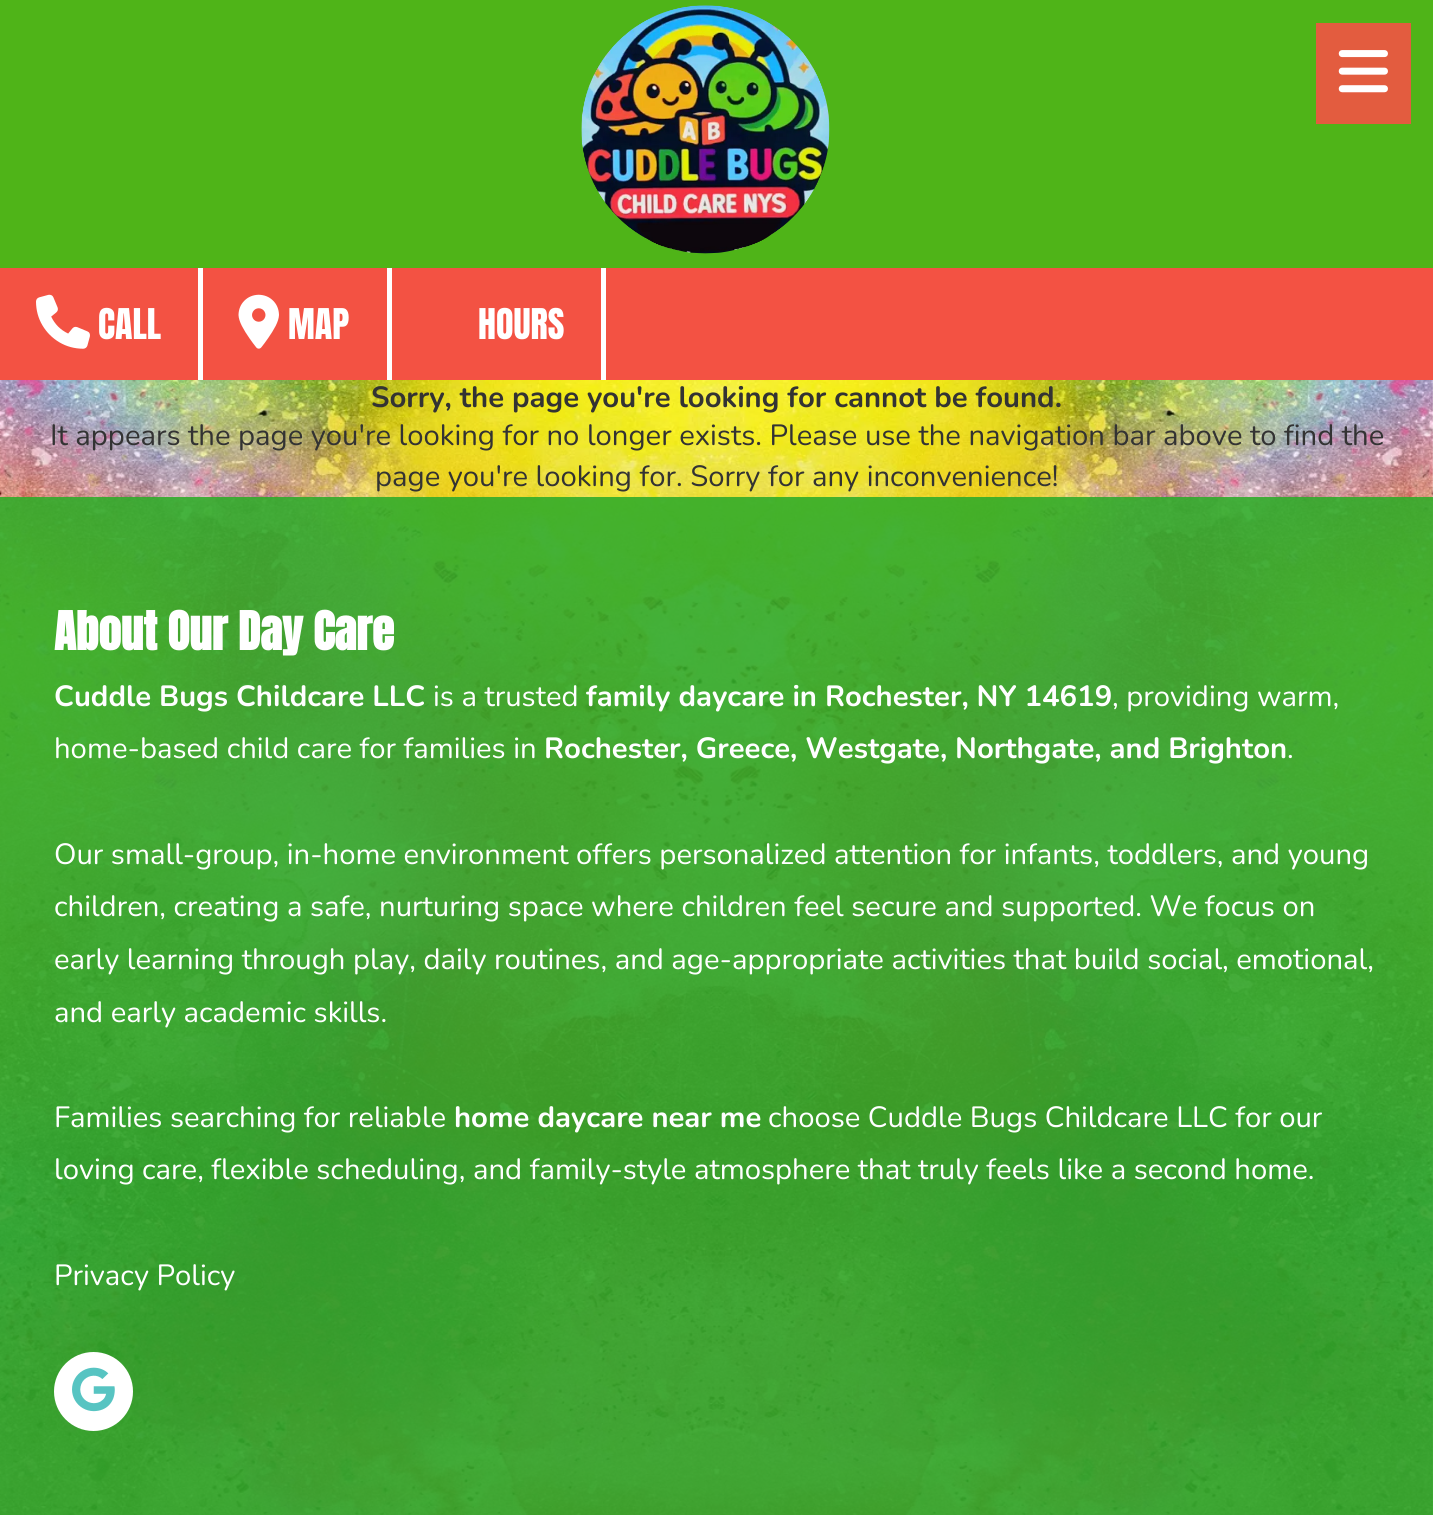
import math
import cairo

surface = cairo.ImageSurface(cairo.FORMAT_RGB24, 1433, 1515)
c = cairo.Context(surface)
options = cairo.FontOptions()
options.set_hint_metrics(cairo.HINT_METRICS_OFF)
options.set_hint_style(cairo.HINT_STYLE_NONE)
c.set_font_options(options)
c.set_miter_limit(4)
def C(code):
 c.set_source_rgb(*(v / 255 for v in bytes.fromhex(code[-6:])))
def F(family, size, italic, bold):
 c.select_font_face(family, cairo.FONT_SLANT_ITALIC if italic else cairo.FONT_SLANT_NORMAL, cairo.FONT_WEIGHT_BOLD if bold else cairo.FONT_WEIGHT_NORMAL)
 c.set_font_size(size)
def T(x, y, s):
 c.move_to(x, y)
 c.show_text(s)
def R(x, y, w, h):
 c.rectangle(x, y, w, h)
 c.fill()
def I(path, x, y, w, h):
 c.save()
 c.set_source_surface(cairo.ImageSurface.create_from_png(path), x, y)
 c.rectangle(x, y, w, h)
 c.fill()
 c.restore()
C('ffffff')
c.paint()
C('4fb418')
R(0,0,1433,268)
I('1.png',581,5,249,249)
C('e35c3f')
R(1316,23,95,101)
I('2.png',1338,50,50,43)
C('f35243')
R(0,268,1433,112)
C('ffffff')
R(198,268,5,112)
I('3.png',36,294,54,55)
F('Anton',36,0,0)
T(98,339,'CALL')
R(387,268,5,112)
I('4.png',238,294,41,55)
T(288,339,'MAP')
R(601,268,5,112)
T(478,339,'HOURS')
I('6.png',0,380,1433,1135)
F('Nunito',29.25,0,1)
C('333333')
T(371,407,'Sorry, the page you\'re looking for cannot be found.')
F('Nunito',29.25,0,0)
T(50,445,'It appears the page you\'re looking for no longer exists. Please use the navigation bar above to find the')
T(375,486,'page you\'re looking for. Sorry for any inconvenience!')
c.set_source_rgba(0.188,0.675,0.165,0.89)
R(0,497,1433,1018)
F('Anton',45,0,1)
C('ffffff')
T(54,650,'About Our Day Care')
F('Nunito',29.25,0,1)
T(54,706,'Cuddle Bugs Childcare LLC')
F('Nunito',29.25,0,0)
T(433,706,'is a trusted')
F('Nunito',29.25,0,1)
T(586,706,'family daycare in Rochester, NY 14619')
F('Nunito',29.25,0,0)
T(1112,706,', providing warm,')
T(54,758,'home-based child care for families in')
F('Nunito',29.25,0,1)
T(544,758,'Rochester, Greece, Westgate, Northgate, and Brighton')
F('Nunito',29.25,0,0)
T(1287,758,'.')
T(54,864,'Our small-group, in-home environment offers personalized attention for infants, toddlers, and young')
T(54,916,'children, creating a safe, nurturing space where children feel secure and supported. We focus on')
T(54,969,'early learning through play, daily routines, and age-appropriate activities that build social, emotional,')
T(54,1022,'and early academic skills.')
T(54,1127,'Families searching for reliable')
F('Nunito',29.25,0,1)
T(454,1127,'home daycare near me')
F('Nunito',29.25,0,0)
T(768,1127,'choose Cuddle Bugs Childcare LLC for our')
T(54,1179,'loving care, flexible scheduling, and family-style atmosphere that truly feels like a second home.')
T(54,1285,'Privacy Policy')
c.new_path()
c.arc(93.5,1391.5,39.5,0,2 * math.pi)
c.fill()
I('5.png',72,1367,43,45)
surface.write_to_png('o.png')
